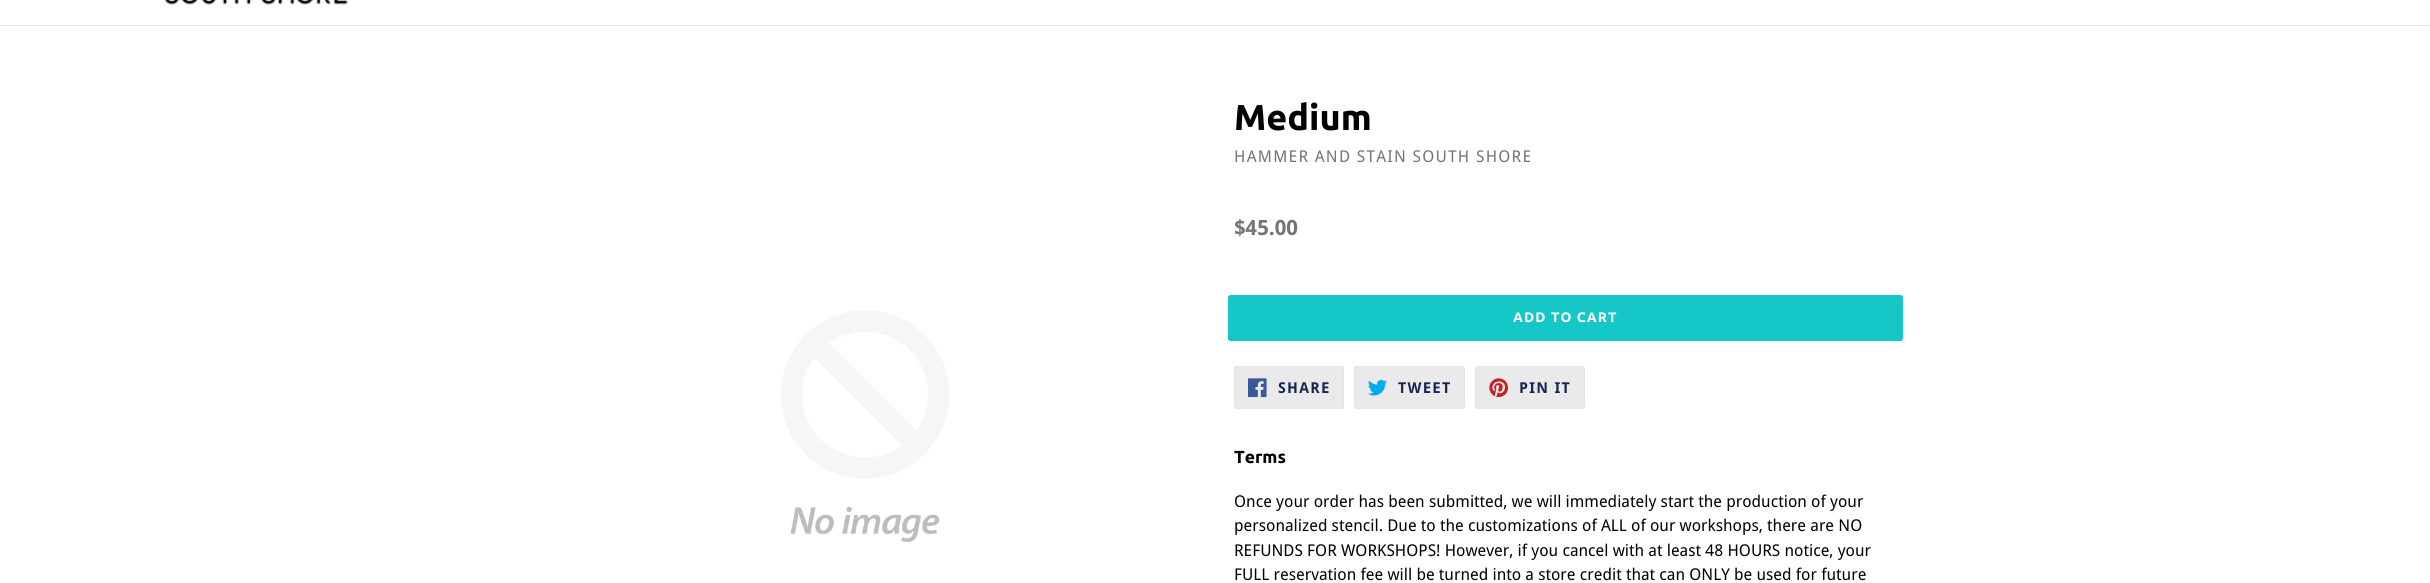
import math
import cairo

surface = cairo.ImageSurface(cairo.FORMAT_RGB24, 2430, 583)
c = cairo.Context(surface)
options = cairo.FontOptions()
options.set_hint_metrics(cairo.HINT_METRICS_OFF)
options.set_hint_style(cairo.HINT_STYLE_NONE)
c.set_font_options(options)
c.set_miter_limit(4)
def C(code):
 c.set_source_rgb(*(v / 255 for v in bytes.fromhex(code[-6:])))
def F(family, size, italic, bold):
 c.select_font_face(family, cairo.FONT_SLANT_ITALIC if italic else cairo.FONT_SLANT_NORMAL, cairo.FONT_WEIGHT_BOLD if bold else cairo.FONT_WEIGHT_NORMAL)
 c.set_font_size(size)
def T(x, y, s):
 c.move_to(x, y)
 c.show_text(s)
def L(x, y, s, letter, word):
 c.move_to(x, y)
 for ch in s:
  c.show_text(ch)
  c.rel_move_to(letter + word * (ch == ' '), 0)
def R(x, y, w, h):
 c.rectangle(x, y, w, h)
 c.fill()
def Q(x, y, w, h, r):
 c.new_sub_path()
 for i, (u, v) in enumerate([(x + w - r, y + h - r), (x + r, y + h - r), (x + r, y + r), (x + w - r, y + r)]):
  c.arc(u, v, r, i * math.pi / 2, (i + 1) * math.pi / 2)
 c.close_path()
def I(path, x, y, w, h):
 c.save()
 c.set_source_surface(cairo.ImageSurface.create_from_png(path), x, y)
 c.rectangle(x, y, w, h)
 c.fill()
 c.restore()
C('ffffff')
c.paint()
C('e4e4e4')
R(0,25,2430,1)
I('1.png',164,0,184,5)
I('2.png',781,310,168,232)
F('Ubuntu',36,0,1)
C('030303')
T(1234,130,'Medium')
F('Droid Sans',16.25,0,0)
C('757575')
L(1234,162,'HAMMER AND STAIN SOUTH SHORE',1.25,0)
F('Droid Sans',21,0,1)
T(1234,235,'$45.00')
C('16c7c7')
Q(1228,295,675,46,2.5)
c.fill()
F('Ubuntu',13.75,0,1)
C('ffffff')
L(1513,322,'ADD TO CART',1.1,0)
C('eaeaea')
Q(1234.5,366.5,109,42,2)
c.fill_preserve()
C('e4e4e4')
c.set_line_width(1)
c.stroke()
I('3.png',1248,378,19,20)
F('Droid Sans',15,0,1)
C('162950')
L(1278,393,'SHARE',1.25,0)
C('eaeaea')
Q(1354.5,366.5,110,42,2)
c.fill_preserve()
C('e4e4e4')
c.stroke()
I('4.png',1368,379,19,17)
C('162950')
L(1398,393,'TWEET',1.25,0)
C('eaeaea')
Q(1475.5,366.5,109,42,2)
c.fill_preserve()
C('e4e4e4')
c.stroke()
I('5.png',1489,378,20,20)
C('162950')
L(1519,393,'PIN IT',1.25,0)
F('Ubuntu',17.5,0,1)
C('030303')
T(1234,463,'Terms')
F('Droid Sans',16.25,0,0)
T(1234,507,'Once your order has been submitted, we will immediately start the production of your')
T(1234,531,'personalized stencil. Due to the customizations of ALL of our workshops, there are NO')
T(1234,556,'REFUNDS FOR WORKSHOPS! However, if you cancel with at least 48 HOURS notice, your')
T(1234,580,'FULL reservation fee will be turned into a store credit that can ONLY be used for future')
surface.write_to_png('o.png')
